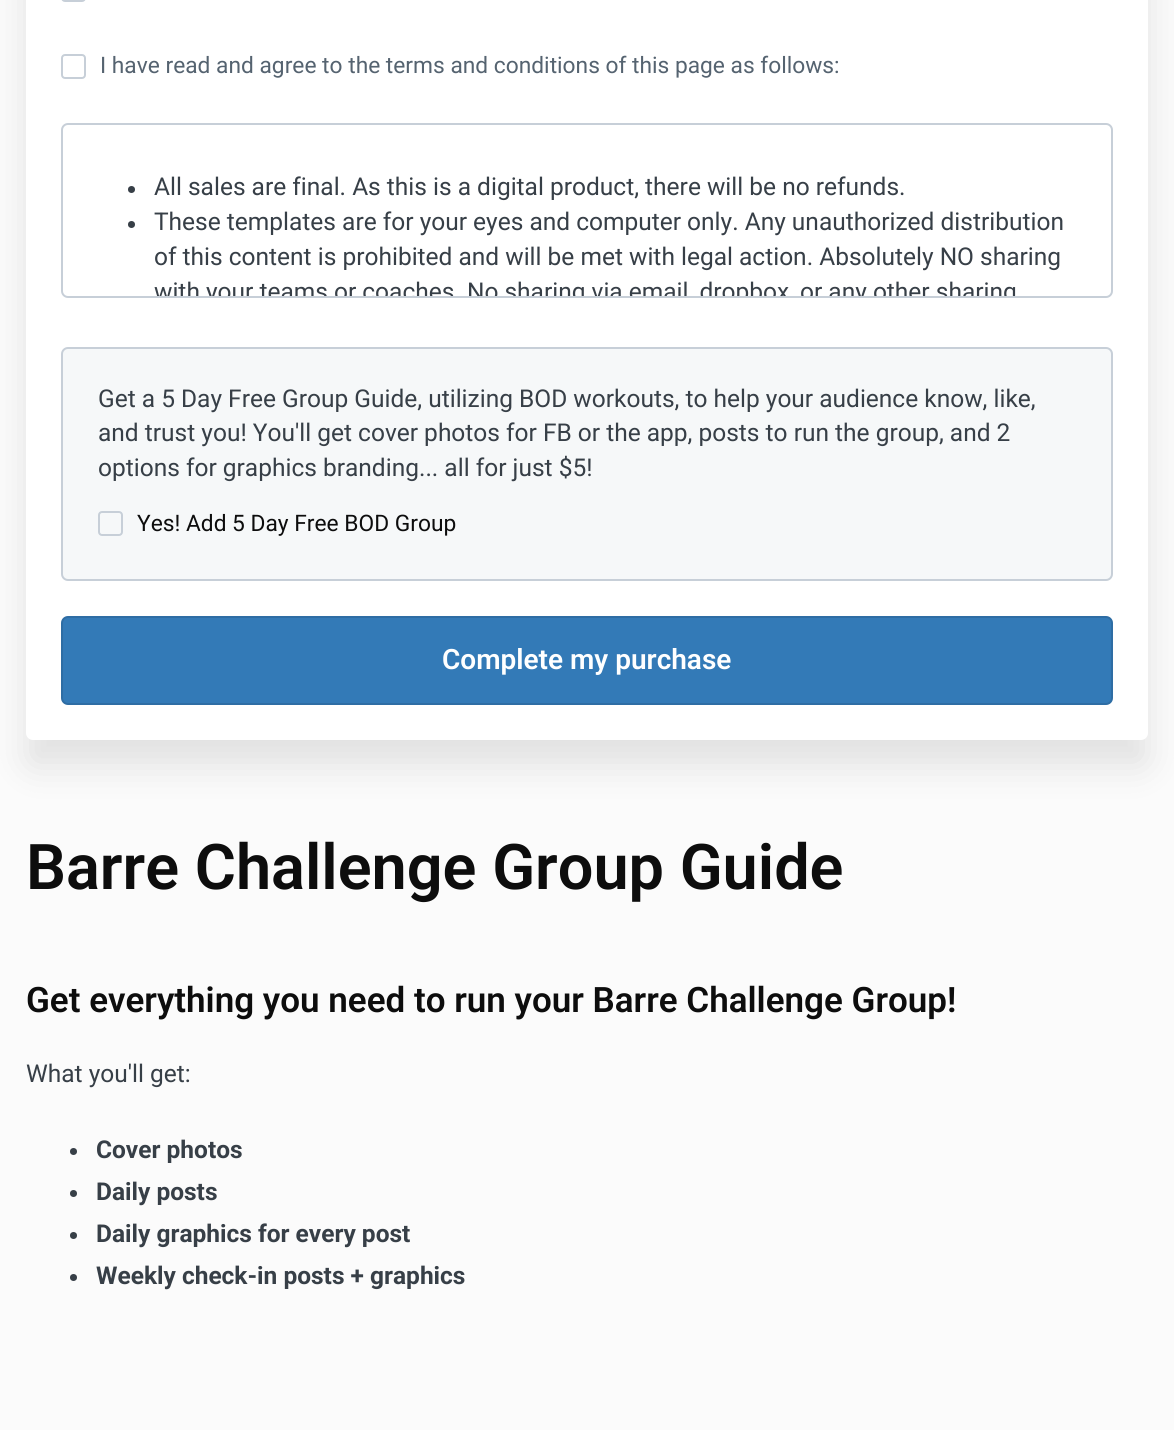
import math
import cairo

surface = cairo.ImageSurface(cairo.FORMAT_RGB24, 1174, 1430)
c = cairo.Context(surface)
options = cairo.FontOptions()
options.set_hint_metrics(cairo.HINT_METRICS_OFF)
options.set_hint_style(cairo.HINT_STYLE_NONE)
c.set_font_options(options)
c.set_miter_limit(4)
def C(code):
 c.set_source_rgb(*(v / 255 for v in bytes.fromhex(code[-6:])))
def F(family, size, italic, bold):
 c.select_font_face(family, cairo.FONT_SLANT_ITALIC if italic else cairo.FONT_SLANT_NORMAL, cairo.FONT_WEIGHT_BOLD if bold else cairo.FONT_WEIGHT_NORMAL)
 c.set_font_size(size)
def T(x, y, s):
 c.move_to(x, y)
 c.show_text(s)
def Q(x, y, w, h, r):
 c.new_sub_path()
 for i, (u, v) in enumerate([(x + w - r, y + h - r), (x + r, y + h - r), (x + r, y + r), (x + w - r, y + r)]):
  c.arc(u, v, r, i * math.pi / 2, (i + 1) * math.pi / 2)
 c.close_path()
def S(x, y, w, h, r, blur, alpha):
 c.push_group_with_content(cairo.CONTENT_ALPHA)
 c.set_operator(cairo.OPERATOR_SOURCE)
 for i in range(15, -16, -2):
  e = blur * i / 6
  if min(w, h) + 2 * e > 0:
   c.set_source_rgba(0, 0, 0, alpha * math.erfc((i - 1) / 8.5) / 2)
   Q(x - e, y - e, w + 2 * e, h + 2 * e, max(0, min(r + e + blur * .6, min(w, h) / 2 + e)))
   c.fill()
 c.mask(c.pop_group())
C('fbfbfb')
c.paint()
C('000000')
S(26,-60,1122,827,7,17.5,.1)
C('ffffff')
Q(26,-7,1122,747,7)
c.fill()
Q(62,-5,23,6,3)
C('c7cfd8')
c.stroke()
Q(62,55,23,23,3)
c.stroke()
F('Roboto',22.75,0,0)
C('556370')
T(100,73,'I have read and agree to the terms and conditions of this page as follows:')
Q(62,124,1050,173,6)
C('c7cfd8')
c.stroke()
C('373f47')
c.arc(131.5,189.5,3.5,0,2 * math.pi)
c.fill()
F('Roboto',24.5,0,0)
T(154,195,'All sales are final. As this is a digital product, there will be no refunds.')
c.new_path()
c.arc(131.5,224.5,3.5,0,2 * math.pi)
c.fill()
T(154,230,'These templates are for your eyes and computer only. Any unauthorized distribution')
T(154,265,'of this content is prohibited and will be met with legal action. Absolutely NO sharing')
c.save()
Q(63,124,1048,172,5)
c.clip()
T(154,300,'with your teams or coaches. No sharing via email, dropbox, or any other sharing')
c.restore()
C('f6f8f9')
Q(62,348,1050,232,6)
c.fill_preserve()
C('c7cfd8')
c.stroke()
C('373f47')
T(98,407,'Get a 5 Day Free Group Guide, utilizing BOD workouts, to help your audience know, like,')
T(98,441,'and trust you! You\'ll get cover photos for FB or the app, posts to run the group, and 2')
T(98,476,'options for graphics branding... all for just $5!')
Q(99,512,23,23,3)
C('c7cfd8')
c.stroke()
F('Roboto',22.75,0,0)
C('0d0d0d')
T(137,531,'Yes! Add 5 Day Free BOD Group')
C('337ab7')
Q(62,617,1050,87,6)
c.fill_preserve()
C('2e6da4')
c.stroke()
F('Roboto SemiBold',28,0,0)
C('ffffff')
T(442,669,'Complete my purchase')
F('Roboto SemiBold',63,0,0)
C('0d0d0d')
T(26,889,'Barre Challenge Group Guide')
F('Roboto SemiBold',35,0,0)
T(26,1012,'Get everything you need to run your Barre Challenge Group!')
F('Roboto',24.5,0,0)
C('373f47')
T(26,1082,'What you\'ll get:')
c.new_path()
c.arc(73.5,1151.5,3.5,0,2 * math.pi)
c.fill()
F('Roboto',24.5,0,1)
T(96,1158,'Cover photos')
c.new_path()
c.arc(73.5,1193.5,3.5,0,2 * math.pi)
c.fill()
T(96,1200,'Daily posts')
c.new_path()
c.arc(73.5,1235.5,3.5,0,2 * math.pi)
c.fill()
T(96,1242,'Daily graphics for every post')
c.new_path()
c.arc(73.5,1277.5,3.5,0,2 * math.pi)
c.fill()
T(96,1284,'Weekly check-in posts + graphics')
surface.write_to_png('o.png')
